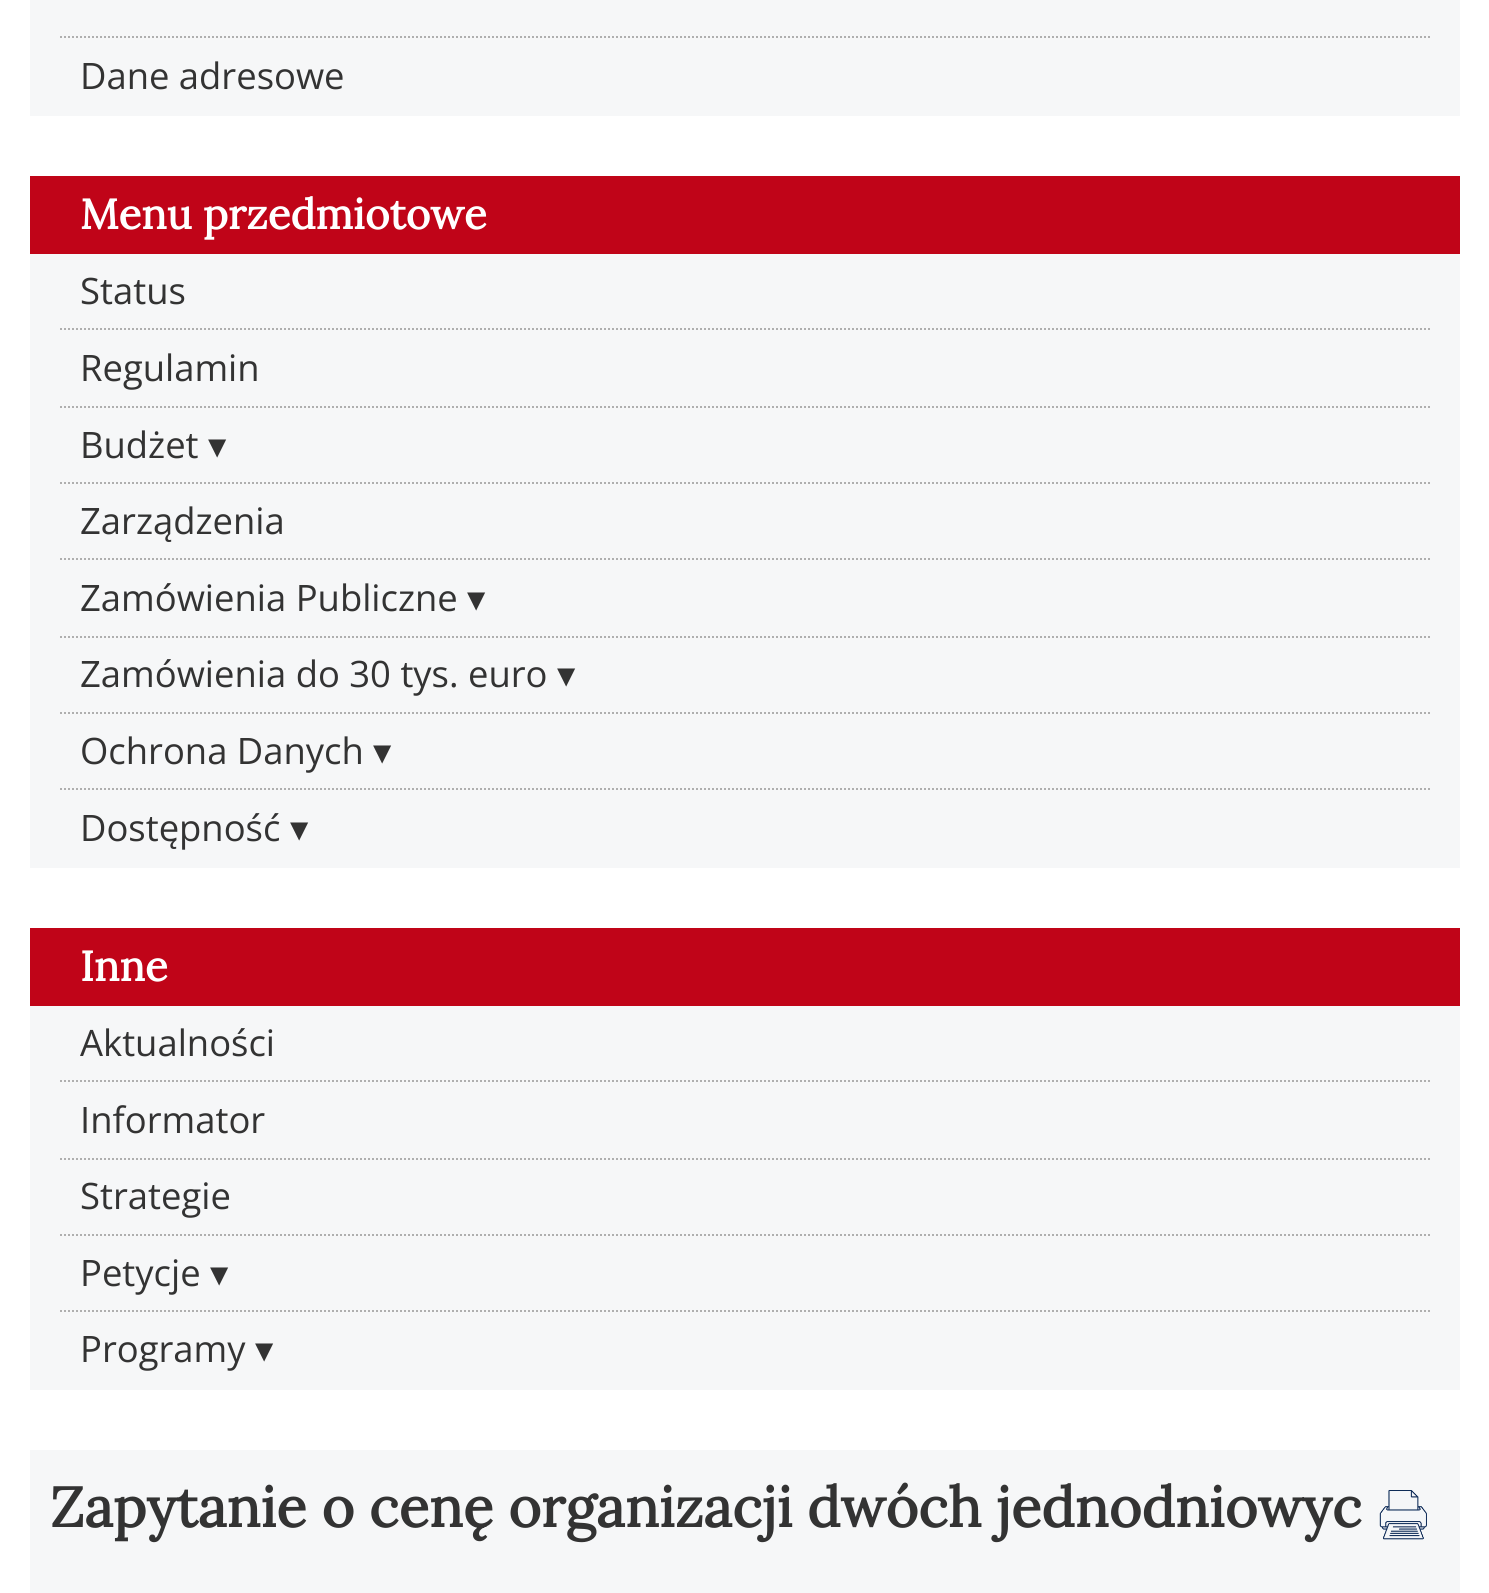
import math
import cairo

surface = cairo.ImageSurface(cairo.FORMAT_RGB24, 1489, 1593)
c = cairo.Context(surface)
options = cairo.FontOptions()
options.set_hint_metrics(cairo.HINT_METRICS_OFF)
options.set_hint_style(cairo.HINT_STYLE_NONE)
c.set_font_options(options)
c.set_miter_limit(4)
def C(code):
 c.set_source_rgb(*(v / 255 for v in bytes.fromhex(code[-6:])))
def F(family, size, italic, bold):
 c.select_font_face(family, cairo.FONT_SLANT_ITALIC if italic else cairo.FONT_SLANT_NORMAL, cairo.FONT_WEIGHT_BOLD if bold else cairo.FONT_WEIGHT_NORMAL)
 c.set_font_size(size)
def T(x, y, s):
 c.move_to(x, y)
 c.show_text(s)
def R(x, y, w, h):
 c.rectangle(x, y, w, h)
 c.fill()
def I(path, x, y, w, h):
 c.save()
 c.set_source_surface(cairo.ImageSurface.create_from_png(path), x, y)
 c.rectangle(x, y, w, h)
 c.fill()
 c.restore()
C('ffffff')
c.paint()
C('f6f7f8')
R(30,0,1430,116)
c.new_path()
c.move_to(60,37)
c.line_to(1430,37)
C('afafaf')
c.set_dash([2,2])
c.stroke()
F('Open Sans',36.4,0,0)
C('333333')
T(80,89,'Dane adresowe')
C('c00418')
R(30,176,1430,78)
F('Lora',42,0,1)
C('ffffff')
T(80,229,'Menu przedmiotowe')
C('f6f7f8')
R(30,254,1430,614)
c.new_path()
c.move_to(60,329)
c.line_to(1430,329)
C('afafaf')
c.stroke()
F('Open Sans',36.4,0,0)
C('333333')
T(80,304,'Status')
c.new_path()
c.move_to(60,407)
c.line_to(1430,407)
C('afafaf')
c.stroke()
C('333333')
T(80,381,'Regulamin')
c.new_path()
c.move_to(60,483)
c.line_to(1430,483)
C('afafaf')
c.stroke()
C('333333')
T(80,458,'Budżet')
F('DejaVu Sans',36.4,0,0)
T(208,458,'▾')
c.new_path()
c.move_to(60,559)
c.line_to(1430,559)
C('afafaf')
c.stroke()
F('Open Sans',36.4,0,0)
C('333333')
T(80,534,'Zarządzenia')
c.new_path()
c.move_to(60,637)
c.line_to(1430,637)
C('afafaf')
c.stroke()
C('333333')
T(80,611,'Zamówienia Publiczne')
F('DejaVu Sans',36.4,0,0)
T(467,611,'▾')
c.new_path()
c.move_to(60,713)
c.line_to(1430,713)
C('afafaf')
c.stroke()
F('Open Sans',36.4,0,0)
C('333333')
T(80,687,'Zamówienia do 30 tys. euro')
F('DejaVu Sans',36.4,0,0)
T(557,687,'▾')
c.new_path()
c.move_to(60,789)
c.line_to(1430,789)
C('afafaf')
c.stroke()
F('Open Sans',36.4,0,0)
C('333333')
T(80,764,'Ochrona Danych')
F('DejaVu Sans',36.4,0,0)
T(373,764,'▾')
F('Open Sans',36.4,0,0)
T(80,841,'Dostępność')
F('DejaVu Sans',36.4,0,0)
T(290,841,'▾')
C('c00418')
R(30,928,1430,78)
F('Lora',42,0,1)
C('ffffff')
T(80,981,'Inne')
C('f6f7f8')
R(30,1006,1430,384)
c.new_path()
c.move_to(60,1081)
c.line_to(1430,1081)
C('afafaf')
c.stroke()
F('Open Sans',36.4,0,0)
C('333333')
T(80,1056,'Aktualności')
c.new_path()
c.move_to(60,1159)
c.line_to(1430,1159)
C('afafaf')
c.stroke()
C('333333')
T(80,1133,'Informator')
c.new_path()
c.move_to(60,1235)
c.line_to(1430,1235)
C('afafaf')
c.stroke()
C('333333')
T(80,1209,'Strategie')
c.new_path()
c.move_to(60,1311)
c.line_to(1430,1311)
C('afafaf')
c.stroke()
C('333333')
T(80,1286,'Petycje')
F('DejaVu Sans',36.4,0,0)
T(210,1286,'▾')
F('Open Sans',36.4,0,0)
T(80,1362,'Programy')
F('DejaVu Sans',36.4,0,0)
T(255,1362,'▾')
C('f6f7f8')
R(30,1450,1430,143)
F('Lora',56,0,1)
C('333333')
T(50,1527,'Zapytanie o cenę organizacji dwóch jednodniowyc')
I('1.png',1379,1490,48,50)
surface.write_to_png('o.png')
